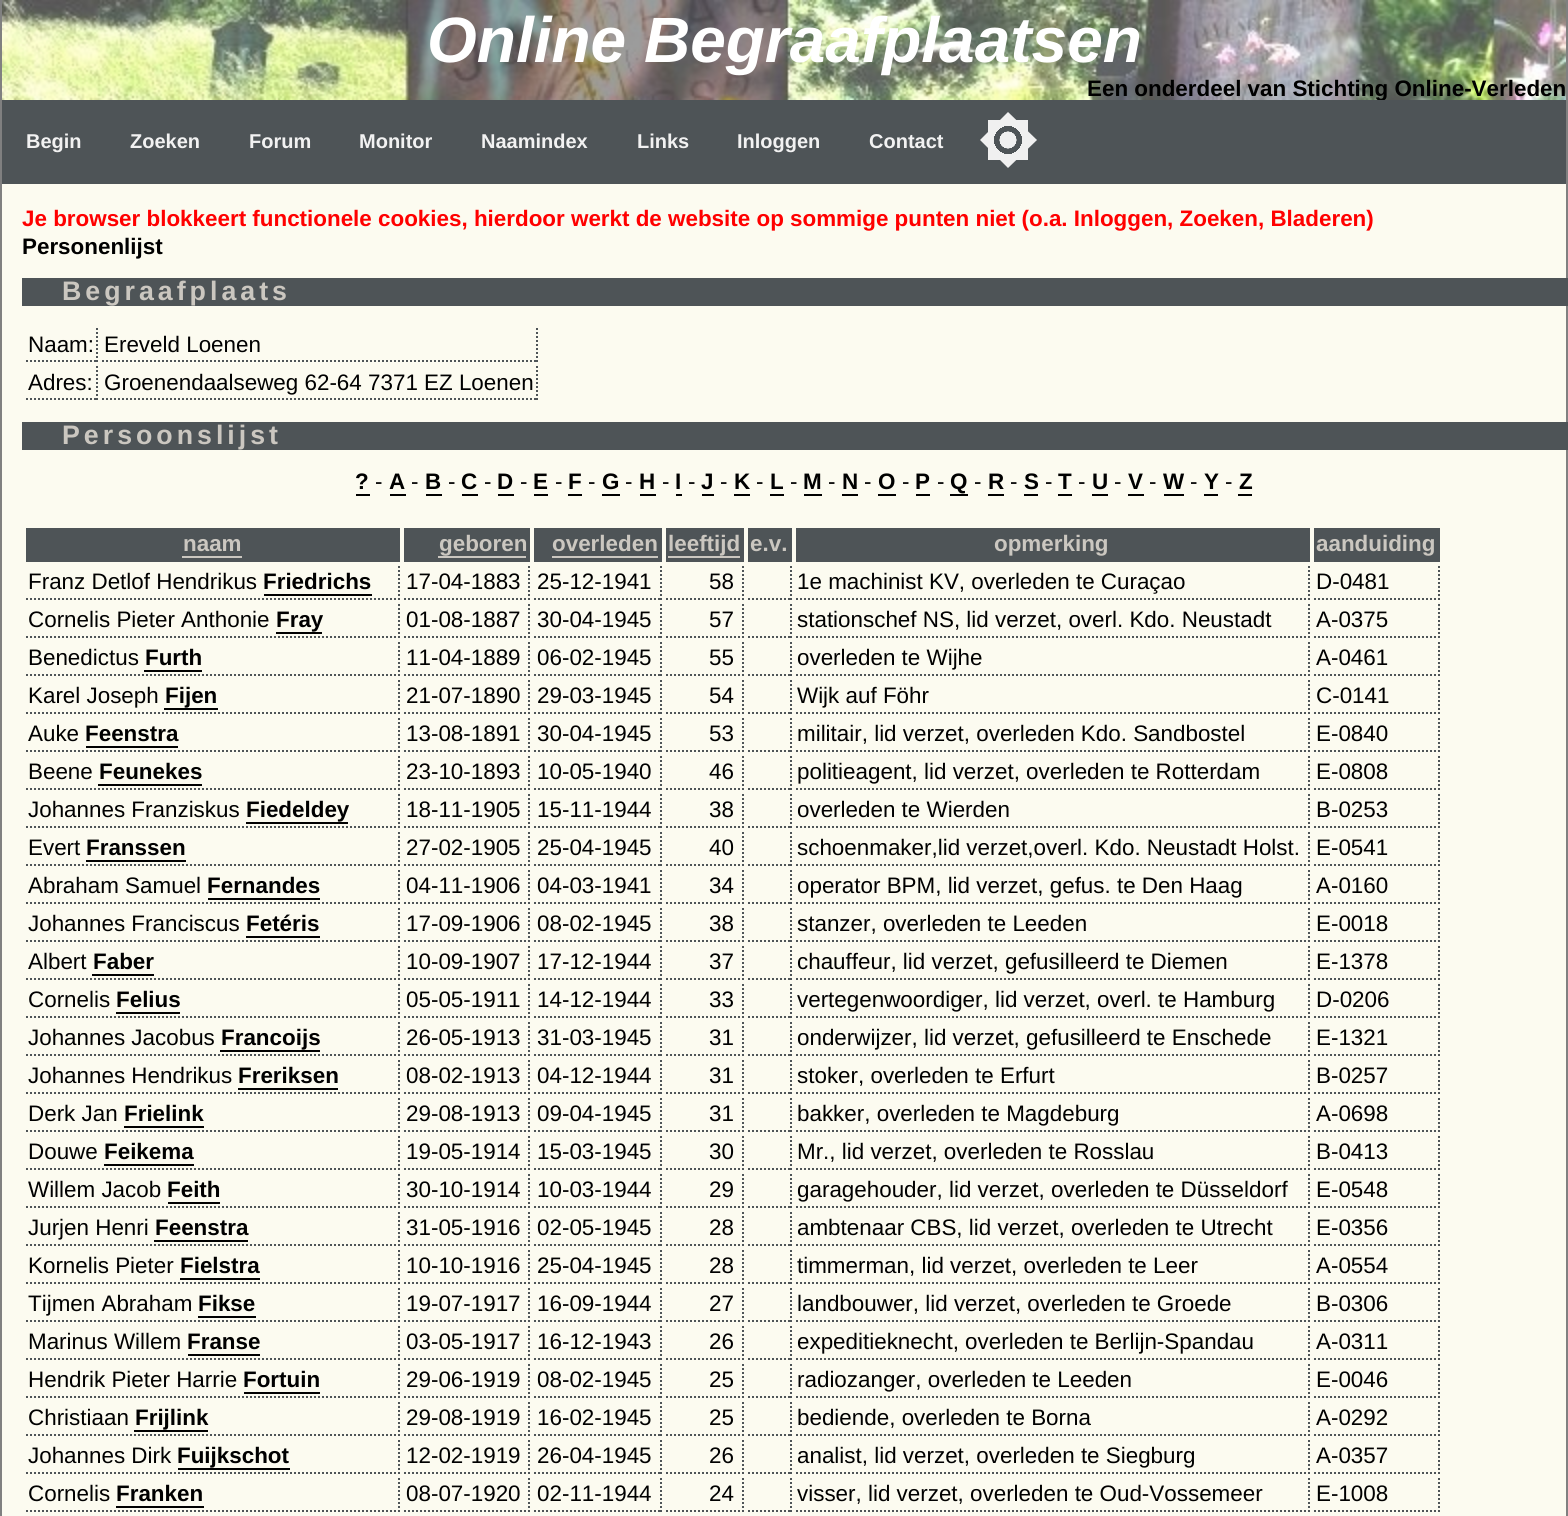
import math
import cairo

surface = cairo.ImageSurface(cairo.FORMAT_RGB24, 1568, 1516)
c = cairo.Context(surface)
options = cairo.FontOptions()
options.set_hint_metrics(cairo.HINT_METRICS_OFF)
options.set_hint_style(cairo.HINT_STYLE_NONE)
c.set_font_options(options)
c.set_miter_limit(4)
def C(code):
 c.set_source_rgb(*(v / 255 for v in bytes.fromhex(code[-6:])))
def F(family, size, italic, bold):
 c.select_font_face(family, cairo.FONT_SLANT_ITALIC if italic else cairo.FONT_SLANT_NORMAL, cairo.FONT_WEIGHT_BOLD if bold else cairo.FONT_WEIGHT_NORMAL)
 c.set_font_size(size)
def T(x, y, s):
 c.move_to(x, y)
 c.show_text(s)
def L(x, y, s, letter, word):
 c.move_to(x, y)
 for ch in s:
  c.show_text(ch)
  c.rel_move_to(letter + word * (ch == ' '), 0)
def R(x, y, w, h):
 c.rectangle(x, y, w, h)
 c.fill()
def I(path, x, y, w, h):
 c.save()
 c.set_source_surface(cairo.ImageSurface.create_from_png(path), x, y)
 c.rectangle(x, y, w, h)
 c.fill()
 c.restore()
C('fcfbf0')
c.paint()
C('808080')
R(1566,0,2,1516)
R(0,0,2,1516)
I('1.png',2,0,1564,100)
F('Liberation Sans',64,1,1)
C('ffffff')
T(427,62,'Online Begraafplaatsen')
F('Liberation Sans',22.4,0,1)
C('000000')
T(1087,96,'Een onderdeel van Stichting Online-Verleden')
C('4e5457')
R(2,100,1564,84)
F('Liberation Sans',20,0,1)
C('f2f2f2')
T(26,148,'Begin')
T(130,148,'Zoeken')
T(249,148,'Forum')
T(359,148,'Monitor')
T(481,148,'Naamindex')
T(637,148,'Links')
T(737,148,'Inloggen')
T(869,148,'Contact')
gradient = cairo.RadialGradient(1008,140,0,1008,140,28)
gradient.add_color_stop_rgba(0,0.306,0.329,0.341,1)
gradient.add_color_stop_rgba(.5,0.306,0.329,0.341,1)
gradient.add_color_stop_rgba(.5,0.941,0.941,0.941,1)
c.set_source(gradient)
R(988,120,40,40)
gradient = cairo.RadialGradient(1008,140,0,1008,140,28)
gradient.add_color_stop_rgba(.3,0.941,0.941,0.941,1)
gradient.add_color_stop_rgba(.31,0.941,0.941,0.941,0)
gradient.add_color_stop_rgba(.5,0.941,0.941,0.941,0)
gradient.add_color_stop_rgba(.5,0.941,0.941,0.941,1)
c.set_source(gradient)
c.new_path()
c.move_to(1008,168)
c.line_to(980,140)
c.line_to(1008,112)
c.line_to(1037,140)
c.close_path()
c.fill()
C('4e5457')
c.new_path()
c.move_to(999.5,139.5)
c.line_to(996.5,138)
c.line_to(998.5,137.5)
c.close_path()
c.fill()
F('Liberation Sans',22.4,0,1)
C('ff0000')
T(22,226,'Je browser blokkeert functionele cookies, hierdoor werkt de website op sommige punten niet (o.a. Inloggen, Zoeken, Bladeren)')
C('000000')
T(22,254,'Personenlijst')
C('4e5457')
R(22,278,1546,28)
F('Liberation Sans',26.75,0,1)
C('cbc7c0')
L(62,300,'Begraafplaats',4,0)
c.new_path()
c.move_to(97,328)
c.line_to(97,362)
C('4e5457')
c.set_dash([2,2])
c.stroke()
c.new_path()
c.move_to(26,361)
c.line_to(98,361)
c.stroke()
F('Liberation Sans',22.4,0,0)
C('000000')
T(28,352,'Naam:')
c.new_path()
c.move_to(537,328)
c.line_to(537,362)
C('4e5457')
c.stroke()
c.new_path()
c.move_to(102,361)
c.line_to(538,361)
c.stroke()
C('000000')
T(104,352,'Ereveld Loenen')
c.new_path()
c.move_to(97,366)
c.line_to(97,400)
C('4e5457')
c.stroke()
c.new_path()
c.move_to(26,399)
c.line_to(98,399)
c.stroke()
C('000000')
T(28,390,'Adres:')
c.new_path()
c.move_to(537,366)
c.line_to(537,400)
C('4e5457')
c.stroke()
c.new_path()
c.move_to(102,399)
c.line_to(538,399)
c.stroke()
C('000000')
T(104,390,'Groenendaalseweg 62-64 7371 EZ Loenen')
C('4e5457')
R(22,422,1546,28)
F('Liberation Sans',26.75,0,1)
C('cbc7c0')
L(62,444,'Persoonslijst',4,0)
F('Liberation Sans',22.4,0,1)
C('000000')
T(355,489,'?')
R(356,494,14,2)
F('Liberation Sans',22.4,0,0)
T(375,489,'-')
F('Liberation Sans',22.4,0,1)
T(389,489,'A')
R(390,494,16,2)
F('Liberation Sans',22.4,0,0)
T(411,489,'-')
F('Liberation Sans',22.4,0,1)
T(425,489,'B')
R(426,494,16,2)
F('Liberation Sans',22.4,0,0)
T(448,489,'-')
F('Liberation Sans',22.4,0,1)
T(461,489,'C')
R(462,494,16,2)
F('Liberation Sans',22.4,0,0)
T(484,489,'-')
F('Liberation Sans',22.4,0,1)
T(497,489,'D')
R(498,494,16,2)
F('Liberation Sans',22.4,0,0)
T(520,489,'-')
F('Liberation Sans',22.4,0,1)
T(533,489,'E')
R(534,494,14,2)
F('Liberation Sans',22.4,0,0)
T(555,489,'-')
F('Liberation Sans',22.4,0,1)
T(568,489,'F')
R(568,494,14,2)
F('Liberation Sans',22.4,0,0)
T(588,489,'-')
F('Liberation Sans',22.4,0,1)
T(602,489,'G')
R(602,494,18,2)
F('Liberation Sans',22.4,0,0)
T(625,489,'-')
F('Liberation Sans',22.4,0,1)
T(639,489,'H')
R(640,494,16,2)
F('Liberation Sans',22.4,0,0)
T(662,489,'-')
F('Liberation Sans',22.4,0,1)
T(675,489,'I')
R(676,494,6,2)
F('Liberation Sans',22.4,0,0)
T(688,489,'-')
F('Liberation Sans',22.4,0,1)
T(701,489,'J')
R(702,494,12,2)
F('Liberation Sans',22.4,0,0)
T(720,489,'-')
F('Liberation Sans',22.4,0,1)
T(734,489,'K')
R(734,494,16,2)
F('Liberation Sans',22.4,0,0)
T(756,489,'-')
F('Liberation Sans',22.4,0,1)
T(770,489,'L')
R(770,494,14,2)
F('Liberation Sans',22.4,0,0)
T(790,489,'-')
F('Liberation Sans',22.4,0,1)
T(803,489,'M')
R(804,494,18,2)
F('Liberation Sans',22.4,0,0)
T(828,489,'-')
F('Liberation Sans',22.4,0,1)
T(842,489,'N')
R(842,494,16,2)
F('Liberation Sans',22.4,0,0)
T(864,489,'-')
F('Liberation Sans',22.4,0,1)
T(878,489,'O')
R(878,494,18,2)
F('Liberation Sans',22.4,0,0)
T(902,489,'-')
F('Liberation Sans',22.4,0,1)
T(915,489,'P')
R(916,494,14,2)
F('Liberation Sans',22.4,0,0)
T(937,489,'-')
F('Liberation Sans',22.4,0,1)
T(950,489,'Q')
R(950,494,18,2)
F('Liberation Sans',22.4,0,0)
T(974,489,'-')
F('Liberation Sans',22.4,0,1)
T(988,489,'R')
R(988,494,16,2)
F('Liberation Sans',22.4,0,0)
T(1010,489,'-')
F('Liberation Sans',22.4,0,1)
T(1024,489,'S')
R(1024,494,14,2)
F('Liberation Sans',22.4,0,0)
T(1045,489,'-')
F('Liberation Sans',22.4,0,1)
T(1058,489,'T')
R(1058,494,14,2)
F('Liberation Sans',22.4,0,0)
T(1078,489,'-')
F('Liberation Sans',22.4,0,1)
T(1092,489,'U')
R(1092,494,16,2)
F('Liberation Sans',22.4,0,0)
T(1114,489,'-')
F('Liberation Sans',22.4,0,1)
T(1128,489,'V')
R(1128,494,16,2)
F('Liberation Sans',22.4,0,0)
T(1149,489,'-')
F('Liberation Sans',22.4,0,1)
T(1163,489,'W')
R(1164,494,20,2)
F('Liberation Sans',22.4,0,0)
T(1190,489,'-')
F('Liberation Sans',22.4,0,1)
T(1204,489,'Y')
R(1204,494,14,2)
F('Liberation Sans',22.4,0,0)
T(1225,489,'-')
F('Liberation Sans',22.4,0,1)
T(1239,489,'Z')
R(1238,494,14,2)
C('4e5457')
R(26,528,374,34)
C('cbc7c0')
T(183,551,'naam')
R(182,556,60,2)
C('4e5457')
R(404,528,126,34)
C('cbc7c0')
T(439,551,'geboren')
R(438,556,88,2)
C('4e5457')
R(534,528,128,34)
C('cbc7c0')
T(552,551,'overleden')
R(552,556,106,2)
C('4e5457')
R(666,528,78,34)
C('cbc7c0')
T(668,551,'leeftijd')
R(668,556,72,2)
C('4e5457')
R(748,528,44,34)
C('cbc7c0')
T(750,551,'e.v.')
C('4e5457')
R(796,528,514,34)
C('cbc7c0')
T(994,551,'opmerking')
C('4e5457')
R(1314,528,126,34)
C('cbc7c0')
T(1316,551,'aanduiding')
c.new_path()
c.move_to(399,566)
c.line_to(399,600)
C('4e5457')
c.stroke()
c.new_path()
c.move_to(26,599)
c.line_to(400,599)
c.stroke()
F('Liberation Sans',22.4,0,0)
C('000000')
T(28,589,'Franz Detlof Hendrikus')
F('Liberation Sans',22.4,0,1)
T(263,589,'Friedrichs')
R(264,594,108,2)
c.new_path()
c.move_to(529,566)
c.line_to(529,600)
C('4e5457')
c.stroke()
c.new_path()
c.move_to(404,599)
c.line_to(530,599)
c.stroke()
F('Liberation Sans',22.4,0,0)
C('000000')
T(406,589,'17-04-1883')
c.new_path()
c.move_to(661,566)
c.line_to(661,600)
C('4e5457')
c.stroke()
c.new_path()
c.move_to(534,599)
c.line_to(662,599)
c.stroke()
C('000000')
T(537,589,'25-12-1941')
c.new_path()
c.move_to(743,566)
c.line_to(743,600)
C('4e5457')
c.stroke()
c.new_path()
c.move_to(666,599)
c.line_to(744,599)
c.stroke()
C('000000')
T(709,589,'58')
c.new_path()
c.move_to(791,566)
c.line_to(791,600)
c.move_to(748,599)
c.line_to(792,599)
C('4e5457')
c.stroke()
c.new_path()
c.move_to(1309,566)
c.line_to(1309,600)
c.stroke()
c.new_path()
c.move_to(796,599)
c.line_to(1310,599)
c.stroke()
C('000000')
T(797,589,'1e machinist KV, overleden te Curaçao')
c.new_path()
c.move_to(1439,566)
c.line_to(1439,600)
C('4e5457')
c.stroke()
c.new_path()
c.move_to(1314,599)
c.line_to(1440,599)
c.stroke()
C('000000')
T(1316,589,'D-0481')
c.new_path()
c.move_to(399,604)
c.line_to(399,638)
C('4e5457')
c.stroke()
c.new_path()
c.move_to(26,637)
c.line_to(400,637)
c.stroke()
C('000000')
T(28,627,'Cornelis Pieter Anthonie')
F('Liberation Sans',22.4,0,1)
T(276,627,'Fray')
R(276,632,46,2)
c.new_path()
c.move_to(529,604)
c.line_to(529,638)
C('4e5457')
c.stroke()
c.new_path()
c.move_to(404,637)
c.line_to(530,637)
c.stroke()
F('Liberation Sans',22.4,0,0)
C('000000')
T(406,627,'01-08-1887')
c.new_path()
c.move_to(661,604)
c.line_to(661,638)
C('4e5457')
c.stroke()
c.new_path()
c.move_to(534,637)
c.line_to(662,637)
c.stroke()
C('000000')
T(537,627,'30-04-1945')
c.new_path()
c.move_to(743,604)
c.line_to(743,638)
C('4e5457')
c.stroke()
c.new_path()
c.move_to(666,637)
c.line_to(744,637)
c.stroke()
C('000000')
T(709,627,'57')
c.new_path()
c.move_to(791,604)
c.line_to(791,638)
c.move_to(748,637)
c.line_to(792,637)
C('4e5457')
c.stroke()
c.new_path()
c.move_to(1309,604)
c.line_to(1309,638)
c.stroke()
c.new_path()
c.move_to(796,637)
c.line_to(1310,637)
c.stroke()
C('000000')
T(797,627,'stationschef NS, lid verzet, overl. Kdo. Neustadt')
c.new_path()
c.move_to(1439,604)
c.line_to(1439,638)
C('4e5457')
c.stroke()
c.new_path()
c.move_to(1314,637)
c.line_to(1440,637)
c.stroke()
C('000000')
T(1316,627,'A-0375')
c.new_path()
c.move_to(399,642)
c.line_to(399,676)
C('4e5457')
c.stroke()
c.new_path()
c.move_to(26,675)
c.line_to(400,675)
c.stroke()
C('000000')
T(28,665,'Benedictus')
F('Liberation Sans',22.4,0,1)
T(145,665,'Furth')
R(144,670,58,2)
c.new_path()
c.move_to(529,642)
c.line_to(529,676)
C('4e5457')
c.stroke()
c.new_path()
c.move_to(404,675)
c.line_to(530,675)
c.stroke()
F('Liberation Sans',22.4,0,0)
C('000000')
T(406,665,'11-04-1889')
c.new_path()
c.move_to(661,642)
c.line_to(661,676)
C('4e5457')
c.stroke()
c.new_path()
c.move_to(534,675)
c.line_to(662,675)
c.stroke()
C('000000')
T(537,665,'06-02-1945')
c.new_path()
c.move_to(743,642)
c.line_to(743,676)
C('4e5457')
c.stroke()
c.new_path()
c.move_to(666,675)
c.line_to(744,675)
c.stroke()
C('000000')
T(709,665,'55')
c.new_path()
c.move_to(791,642)
c.line_to(791,676)
c.move_to(748,675)
c.line_to(792,675)
C('4e5457')
c.stroke()
c.new_path()
c.move_to(1309,642)
c.line_to(1309,676)
c.stroke()
c.new_path()
c.move_to(796,675)
c.line_to(1310,675)
c.stroke()
C('000000')
T(797,665,'overleden te Wijhe')
c.new_path()
c.move_to(1439,642)
c.line_to(1439,676)
C('4e5457')
c.stroke()
c.new_path()
c.move_to(1314,675)
c.line_to(1440,675)
c.stroke()
C('000000')
T(1316,665,'A-0461')
c.new_path()
c.move_to(399,680)
c.line_to(399,714)
C('4e5457')
c.stroke()
c.new_path()
c.move_to(26,713)
c.line_to(400,713)
c.stroke()
C('000000')
T(28,703,'Karel Joseph')
F('Liberation Sans',22.4,0,1)
T(165,703,'Fijen')
R(164,708,54,2)
c.new_path()
c.move_to(529,680)
c.line_to(529,714)
C('4e5457')
c.stroke()
c.new_path()
c.move_to(404,713)
c.line_to(530,713)
c.stroke()
F('Liberation Sans',22.4,0,0)
C('000000')
T(406,703,'21-07-1890')
c.new_path()
c.move_to(661,680)
c.line_to(661,714)
C('4e5457')
c.stroke()
c.new_path()
c.move_to(534,713)
c.line_to(662,713)
c.stroke()
C('000000')
T(537,703,'29-03-1945')
c.new_path()
c.move_to(743,680)
c.line_to(743,714)
C('4e5457')
c.stroke()
c.new_path()
c.move_to(666,713)
c.line_to(744,713)
c.stroke()
C('000000')
T(709,703,'54')
c.new_path()
c.move_to(791,680)
c.line_to(791,714)
c.move_to(748,713)
c.line_to(792,713)
C('4e5457')
c.stroke()
c.new_path()
c.move_to(1309,680)
c.line_to(1309,714)
c.stroke()
c.new_path()
c.move_to(796,713)
c.line_to(1310,713)
c.stroke()
C('000000')
T(797,703,'Wijk auf Föhr')
c.new_path()
c.move_to(1439,680)
c.line_to(1439,714)
C('4e5457')
c.stroke()
c.new_path()
c.move_to(1314,713)
c.line_to(1440,713)
c.stroke()
C('000000')
T(1316,703,'C-0141')
c.new_path()
c.move_to(399,718)
c.line_to(399,752)
C('4e5457')
c.stroke()
c.new_path()
c.move_to(26,751)
c.line_to(400,751)
c.stroke()
C('000000')
T(28,741,'Auke')
F('Liberation Sans',22.4,0,1)
T(85,741,'Feenstra')
R(86,746,92,2)
c.new_path()
c.move_to(529,718)
c.line_to(529,752)
C('4e5457')
c.stroke()
c.new_path()
c.move_to(404,751)
c.line_to(530,751)
c.stroke()
F('Liberation Sans',22.4,0,0)
C('000000')
T(406,741,'13-08-1891')
c.new_path()
c.move_to(661,718)
c.line_to(661,752)
C('4e5457')
c.stroke()
c.new_path()
c.move_to(534,751)
c.line_to(662,751)
c.stroke()
C('000000')
T(537,741,'30-04-1945')
c.new_path()
c.move_to(743,718)
c.line_to(743,752)
C('4e5457')
c.stroke()
c.new_path()
c.move_to(666,751)
c.line_to(744,751)
c.stroke()
C('000000')
T(709,741,'53')
c.new_path()
c.move_to(791,718)
c.line_to(791,752)
c.move_to(748,751)
c.line_to(792,751)
C('4e5457')
c.stroke()
c.new_path()
c.move_to(1309,718)
c.line_to(1309,752)
c.stroke()
c.new_path()
c.move_to(796,751)
c.line_to(1310,751)
c.stroke()
C('000000')
T(797,741,'militair, lid verzet, overleden Kdo. Sandbostel')
c.new_path()
c.move_to(1439,718)
c.line_to(1439,752)
C('4e5457')
c.stroke()
c.new_path()
c.move_to(1314,751)
c.line_to(1440,751)
c.stroke()
C('000000')
T(1316,741,'E-0840')
c.new_path()
c.move_to(399,756)
c.line_to(399,790)
C('4e5457')
c.stroke()
c.new_path()
c.move_to(26,789)
c.line_to(400,789)
c.stroke()
C('000000')
T(28,779,'Beene')
F('Liberation Sans',22.4,0,1)
T(99,779,'Feunekes')
R(98,784,104,2)
c.new_path()
c.move_to(529,756)
c.line_to(529,790)
C('4e5457')
c.stroke()
c.new_path()
c.move_to(404,789)
c.line_to(530,789)
c.stroke()
F('Liberation Sans',22.4,0,0)
C('000000')
T(406,779,'23-10-1893')
c.new_path()
c.move_to(661,756)
c.line_to(661,790)
C('4e5457')
c.stroke()
c.new_path()
c.move_to(534,789)
c.line_to(662,789)
c.stroke()
C('000000')
T(537,779,'10-05-1940')
c.new_path()
c.move_to(743,756)
c.line_to(743,790)
C('4e5457')
c.stroke()
c.new_path()
c.move_to(666,789)
c.line_to(744,789)
c.stroke()
C('000000')
T(709,779,'46')
c.new_path()
c.move_to(791,756)
c.line_to(791,790)
c.move_to(748,789)
c.line_to(792,789)
C('4e5457')
c.stroke()
c.new_path()
c.move_to(1309,756)
c.line_to(1309,790)
c.stroke()
c.new_path()
c.move_to(796,789)
c.line_to(1310,789)
c.stroke()
C('000000')
T(797,779,'politieagent, lid verzet, overleden te Rotterdam')
c.new_path()
c.move_to(1439,756)
c.line_to(1439,790)
C('4e5457')
c.stroke()
c.new_path()
c.move_to(1314,789)
c.line_to(1440,789)
c.stroke()
C('000000')
T(1316,779,'E-0808')
c.new_path()
c.move_to(399,794)
c.line_to(399,828)
C('4e5457')
c.stroke()
c.new_path()
c.move_to(26,827)
c.line_to(400,827)
c.stroke()
C('000000')
T(28,817,'Johannes Franziskus')
F('Liberation Sans',22.4,0,1)
T(246,817,'Fiedeldey')
R(246,822,102,2)
c.new_path()
c.move_to(529,794)
c.line_to(529,828)
C('4e5457')
c.stroke()
c.new_path()
c.move_to(404,827)
c.line_to(530,827)
c.stroke()
F('Liberation Sans',22.4,0,0)
C('000000')
T(406,817,'18-11-1905')
c.new_path()
c.move_to(661,794)
c.line_to(661,828)
C('4e5457')
c.stroke()
c.new_path()
c.move_to(534,827)
c.line_to(662,827)
c.stroke()
C('000000')
T(537,817,'15-11-1944')
c.new_path()
c.move_to(743,794)
c.line_to(743,828)
C('4e5457')
c.stroke()
c.new_path()
c.move_to(666,827)
c.line_to(744,827)
c.stroke()
C('000000')
T(709,817,'38')
c.new_path()
c.move_to(791,794)
c.line_to(791,828)
c.move_to(748,827)
c.line_to(792,827)
C('4e5457')
c.stroke()
c.new_path()
c.move_to(1309,794)
c.line_to(1309,828)
c.stroke()
c.new_path()
c.move_to(796,827)
c.line_to(1310,827)
c.stroke()
C('000000')
T(797,817,'overleden te Wierden')
c.new_path()
c.move_to(1439,794)
c.line_to(1439,828)
C('4e5457')
c.stroke()
c.new_path()
c.move_to(1314,827)
c.line_to(1440,827)
c.stroke()
C('000000')
T(1316,817,'B-0253')
c.new_path()
c.move_to(399,832)
c.line_to(399,866)
C('4e5457')
c.stroke()
c.new_path()
c.move_to(26,865)
c.line_to(400,865)
c.stroke()
C('000000')
T(28,855,'Evert')
F('Liberation Sans',22.4,0,1)
T(86,855,'Franssen')
R(86,860,100,2)
c.new_path()
c.move_to(529,832)
c.line_to(529,866)
C('4e5457')
c.stroke()
c.new_path()
c.move_to(404,865)
c.line_to(530,865)
c.stroke()
F('Liberation Sans',22.4,0,0)
C('000000')
T(406,855,'27-02-1905')
c.new_path()
c.move_to(661,832)
c.line_to(661,866)
C('4e5457')
c.stroke()
c.new_path()
c.move_to(534,865)
c.line_to(662,865)
c.stroke()
C('000000')
T(537,855,'25-04-1945')
c.new_path()
c.move_to(743,832)
c.line_to(743,866)
C('4e5457')
c.stroke()
c.new_path()
c.move_to(666,865)
c.line_to(744,865)
c.stroke()
C('000000')
T(709,855,'40')
c.new_path()
c.move_to(791,832)
c.line_to(791,866)
c.move_to(748,865)
c.line_to(792,865)
C('4e5457')
c.stroke()
c.new_path()
c.move_to(1309,832)
c.line_to(1309,866)
c.stroke()
c.new_path()
c.move_to(796,865)
c.line_to(1310,865)
c.stroke()
C('000000')
T(797,855,'schoenmaker,lid verzet,overl. Kdo. Neustadt Holst.')
c.new_path()
c.move_to(1439,832)
c.line_to(1439,866)
C('4e5457')
c.stroke()
c.new_path()
c.move_to(1314,865)
c.line_to(1440,865)
c.stroke()
C('000000')
T(1316,855,'E-0541')
c.new_path()
c.move_to(399,870)
c.line_to(399,904)
C('4e5457')
c.stroke()
c.new_path()
c.move_to(26,903)
c.line_to(400,903)
c.stroke()
C('000000')
T(28,893,'Abraham Samuel')
F('Liberation Sans',22.4,0,1)
T(207,893,'Fernandes')
R(208,898,112,2)
c.new_path()
c.move_to(529,870)
c.line_to(529,904)
C('4e5457')
c.stroke()
c.new_path()
c.move_to(404,903)
c.line_to(530,903)
c.stroke()
F('Liberation Sans',22.4,0,0)
C('000000')
T(406,893,'04-11-1906')
c.new_path()
c.move_to(661,870)
c.line_to(661,904)
C('4e5457')
c.stroke()
c.new_path()
c.move_to(534,903)
c.line_to(662,903)
c.stroke()
C('000000')
T(537,893,'04-03-1941')
c.new_path()
c.move_to(743,870)
c.line_to(743,904)
C('4e5457')
c.stroke()
c.new_path()
c.move_to(666,903)
c.line_to(744,903)
c.stroke()
C('000000')
T(709,893,'34')
c.new_path()
c.move_to(791,870)
c.line_to(791,904)
c.move_to(748,903)
c.line_to(792,903)
C('4e5457')
c.stroke()
c.new_path()
c.move_to(1309,870)
c.line_to(1309,904)
c.stroke()
c.new_path()
c.move_to(796,903)
c.line_to(1310,903)
c.stroke()
C('000000')
T(797,893,'operator BPM, lid verzet, gefus. te Den Haag')
c.new_path()
c.move_to(1439,870)
c.line_to(1439,904)
C('4e5457')
c.stroke()
c.new_path()
c.move_to(1314,903)
c.line_to(1440,903)
c.stroke()
C('000000')
T(1316,893,'A-0160')
c.new_path()
c.move_to(399,908)
c.line_to(399,942)
C('4e5457')
c.stroke()
c.new_path()
c.move_to(26,941)
c.line_to(400,941)
c.stroke()
C('000000')
T(28,931,'Johannes Franciscus')
F('Liberation Sans',22.4,0,1)
T(246,931,'Fetéris')
R(246,936,74,2)
c.new_path()
c.move_to(529,908)
c.line_to(529,942)
C('4e5457')
c.stroke()
c.new_path()
c.move_to(404,941)
c.line_to(530,941)
c.stroke()
F('Liberation Sans',22.4,0,0)
C('000000')
T(406,931,'17-09-1906')
c.new_path()
c.move_to(661,908)
c.line_to(661,942)
C('4e5457')
c.stroke()
c.new_path()
c.move_to(534,941)
c.line_to(662,941)
c.stroke()
C('000000')
T(537,931,'08-02-1945')
c.new_path()
c.move_to(743,908)
c.line_to(743,942)
C('4e5457')
c.stroke()
c.new_path()
c.move_to(666,941)
c.line_to(744,941)
c.stroke()
C('000000')
T(709,931,'38')
c.new_path()
c.move_to(791,908)
c.line_to(791,942)
c.move_to(748,941)
c.line_to(792,941)
C('4e5457')
c.stroke()
c.new_path()
c.move_to(1309,908)
c.line_to(1309,942)
c.stroke()
c.new_path()
c.move_to(796,941)
c.line_to(1310,941)
c.stroke()
C('000000')
T(797,931,'stanzer, overleden te Leeden')
c.new_path()
c.move_to(1439,908)
c.line_to(1439,942)
C('4e5457')
c.stroke()
c.new_path()
c.move_to(1314,941)
c.line_to(1440,941)
c.stroke()
C('000000')
T(1316,931,'E-0018')
c.new_path()
c.move_to(399,946)
c.line_to(399,980)
C('4e5457')
c.stroke()
c.new_path()
c.move_to(26,979)
c.line_to(400,979)
c.stroke()
C('000000')
T(28,969,'Albert')
F('Liberation Sans',22.4,0,1)
T(93,969,'Faber')
R(92,974,62,2)
c.new_path()
c.move_to(529,946)
c.line_to(529,980)
C('4e5457')
c.stroke()
c.new_path()
c.move_to(404,979)
c.line_to(530,979)
c.stroke()
F('Liberation Sans',22.4,0,0)
C('000000')
T(406,969,'10-09-1907')
c.new_path()
c.move_to(661,946)
c.line_to(661,980)
C('4e5457')
c.stroke()
c.new_path()
c.move_to(534,979)
c.line_to(662,979)
c.stroke()
C('000000')
T(537,969,'17-12-1944')
c.new_path()
c.move_to(743,946)
c.line_to(743,980)
C('4e5457')
c.stroke()
c.new_path()
c.move_to(666,979)
c.line_to(744,979)
c.stroke()
C('000000')
T(709,969,'37')
c.new_path()
c.move_to(791,946)
c.line_to(791,980)
c.move_to(748,979)
c.line_to(792,979)
C('4e5457')
c.stroke()
c.new_path()
c.move_to(1309,946)
c.line_to(1309,980)
c.stroke()
c.new_path()
c.move_to(796,979)
c.line_to(1310,979)
c.stroke()
C('000000')
T(797,969,'chauffeur, lid verzet, gefusilleerd te Diemen')
c.new_path()
c.move_to(1439,946)
c.line_to(1439,980)
C('4e5457')
c.stroke()
c.new_path()
c.move_to(1314,979)
c.line_to(1440,979)
c.stroke()
C('000000')
T(1316,969,'E-1378')
c.new_path()
c.move_to(399,984)
c.line_to(399,1018)
C('4e5457')
c.stroke()
c.new_path()
c.move_to(26,1017)
c.line_to(400,1017)
c.stroke()
C('000000')
T(28,1007,'Cornelis')
F('Liberation Sans',22.4,0,1)
T(116,1007,'Felius')
R(116,1012,64,2)
c.new_path()
c.move_to(529,984)
c.line_to(529,1018)
C('4e5457')
c.stroke()
c.new_path()
c.move_to(404,1017)
c.line_to(530,1017)
c.stroke()
F('Liberation Sans',22.4,0,0)
C('000000')
T(406,1007,'05-05-1911')
c.new_path()
c.move_to(661,984)
c.line_to(661,1018)
C('4e5457')
c.stroke()
c.new_path()
c.move_to(534,1017)
c.line_to(662,1017)
c.stroke()
C('000000')
T(537,1007,'14-12-1944')
c.new_path()
c.move_to(743,984)
c.line_to(743,1018)
C('4e5457')
c.stroke()
c.new_path()
c.move_to(666,1017)
c.line_to(744,1017)
c.stroke()
C('000000')
T(709,1007,'33')
c.new_path()
c.move_to(791,984)
c.line_to(791,1018)
c.move_to(748,1017)
c.line_to(792,1017)
C('4e5457')
c.stroke()
c.new_path()
c.move_to(1309,984)
c.line_to(1309,1018)
c.stroke()
c.new_path()
c.move_to(796,1017)
c.line_to(1310,1017)
c.stroke()
C('000000')
T(797,1007,'vertegenwoordiger, lid verzet, overl. te Hamburg')
c.new_path()
c.move_to(1439,984)
c.line_to(1439,1018)
C('4e5457')
c.stroke()
c.new_path()
c.move_to(1314,1017)
c.line_to(1440,1017)
c.stroke()
C('000000')
T(1316,1007,'D-0206')
c.new_path()
c.move_to(399,1022)
c.line_to(399,1056)
C('4e5457')
c.stroke()
c.new_path()
c.move_to(26,1055)
c.line_to(400,1055)
c.stroke()
C('000000')
T(28,1045,'Johannes Jacobus')
F('Liberation Sans',22.4,0,1)
T(221,1045,'Francoijs')
R(220,1050,100,2)
c.new_path()
c.move_to(529,1022)
c.line_to(529,1056)
C('4e5457')
c.stroke()
c.new_path()
c.move_to(404,1055)
c.line_to(530,1055)
c.stroke()
F('Liberation Sans',22.4,0,0)
C('000000')
T(406,1045,'26-05-1913')
c.new_path()
c.move_to(661,1022)
c.line_to(661,1056)
C('4e5457')
c.stroke()
c.new_path()
c.move_to(534,1055)
c.line_to(662,1055)
c.stroke()
C('000000')
T(537,1045,'31-03-1945')
c.new_path()
c.move_to(743,1022)
c.line_to(743,1056)
C('4e5457')
c.stroke()
c.new_path()
c.move_to(666,1055)
c.line_to(744,1055)
c.stroke()
C('000000')
T(709,1045,'31')
c.new_path()
c.move_to(791,1022)
c.line_to(791,1056)
c.move_to(748,1055)
c.line_to(792,1055)
C('4e5457')
c.stroke()
c.new_path()
c.move_to(1309,1022)
c.line_to(1309,1056)
c.stroke()
c.new_path()
c.move_to(796,1055)
c.line_to(1310,1055)
c.stroke()
C('000000')
T(797,1045,'onderwijzer, lid verzet, gefusilleerd te Enschede')
c.new_path()
c.move_to(1439,1022)
c.line_to(1439,1056)
C('4e5457')
c.stroke()
c.new_path()
c.move_to(1314,1055)
c.line_to(1440,1055)
c.stroke()
C('000000')
T(1316,1045,'E-1321')
c.new_path()
c.move_to(399,1060)
c.line_to(399,1094)
C('4e5457')
c.stroke()
c.new_path()
c.move_to(26,1093)
c.line_to(400,1093)
c.stroke()
C('000000')
T(28,1083,'Johannes Hendrikus')
F('Liberation Sans',22.4,0,1)
T(238,1083,'Freriksen')
R(238,1088,100,2)
c.new_path()
c.move_to(529,1060)
c.line_to(529,1094)
C('4e5457')
c.stroke()
c.new_path()
c.move_to(404,1093)
c.line_to(530,1093)
c.stroke()
F('Liberation Sans',22.4,0,0)
C('000000')
T(406,1083,'08-02-1913')
c.new_path()
c.move_to(661,1060)
c.line_to(661,1094)
C('4e5457')
c.stroke()
c.new_path()
c.move_to(534,1093)
c.line_to(662,1093)
c.stroke()
C('000000')
T(537,1083,'04-12-1944')
c.new_path()
c.move_to(743,1060)
c.line_to(743,1094)
C('4e5457')
c.stroke()
c.new_path()
c.move_to(666,1093)
c.line_to(744,1093)
c.stroke()
C('000000')
T(709,1083,'31')
c.new_path()
c.move_to(791,1060)
c.line_to(791,1094)
c.move_to(748,1093)
c.line_to(792,1093)
C('4e5457')
c.stroke()
c.new_path()
c.move_to(1309,1060)
c.line_to(1309,1094)
c.stroke()
c.new_path()
c.move_to(796,1093)
c.line_to(1310,1093)
c.stroke()
C('000000')
T(797,1083,'stoker, overleden te Erfurt')
c.new_path()
c.move_to(1439,1060)
c.line_to(1439,1094)
C('4e5457')
c.stroke()
c.new_path()
c.move_to(1314,1093)
c.line_to(1440,1093)
c.stroke()
C('000000')
T(1316,1083,'B-0257')
c.new_path()
c.move_to(399,1098)
c.line_to(399,1132)
C('4e5457')
c.stroke()
c.new_path()
c.move_to(26,1131)
c.line_to(400,1131)
c.stroke()
C('000000')
T(28,1121,'Derk Jan')
F('Liberation Sans',22.4,0,1)
T(124,1121,'Frielink')
R(124,1126,80,2)
c.new_path()
c.move_to(529,1098)
c.line_to(529,1132)
C('4e5457')
c.stroke()
c.new_path()
c.move_to(404,1131)
c.line_to(530,1131)
c.stroke()
F('Liberation Sans',22.4,0,0)
C('000000')
T(406,1121,'29-08-1913')
c.new_path()
c.move_to(661,1098)
c.line_to(661,1132)
C('4e5457')
c.stroke()
c.new_path()
c.move_to(534,1131)
c.line_to(662,1131)
c.stroke()
C('000000')
T(537,1121,'09-04-1945')
c.new_path()
c.move_to(743,1098)
c.line_to(743,1132)
C('4e5457')
c.stroke()
c.new_path()
c.move_to(666,1131)
c.line_to(744,1131)
c.stroke()
C('000000')
T(709,1121,'31')
c.new_path()
c.move_to(791,1098)
c.line_to(791,1132)
c.move_to(748,1131)
c.line_to(792,1131)
C('4e5457')
c.stroke()
c.new_path()
c.move_to(1309,1098)
c.line_to(1309,1132)
c.stroke()
c.new_path()
c.move_to(796,1131)
c.line_to(1310,1131)
c.stroke()
C('000000')
T(797,1121,'bakker, overleden te Magdeburg')
c.new_path()
c.move_to(1439,1098)
c.line_to(1439,1132)
C('4e5457')
c.stroke()
c.new_path()
c.move_to(1314,1131)
c.line_to(1440,1131)
c.stroke()
C('000000')
T(1316,1121,'A-0698')
c.new_path()
c.move_to(399,1136)
c.line_to(399,1170)
C('4e5457')
c.stroke()
c.new_path()
c.move_to(26,1169)
c.line_to(400,1169)
c.stroke()
C('000000')
T(28,1159,'Douwe')
F('Liberation Sans',22.4,0,1)
T(104,1159,'Feikema')
R(104,1164,90,2)
c.new_path()
c.move_to(529,1136)
c.line_to(529,1170)
C('4e5457')
c.stroke()
c.new_path()
c.move_to(404,1169)
c.line_to(530,1169)
c.stroke()
F('Liberation Sans',22.4,0,0)
C('000000')
T(406,1159,'19-05-1914')
c.new_path()
c.move_to(661,1136)
c.line_to(661,1170)
C('4e5457')
c.stroke()
c.new_path()
c.move_to(534,1169)
c.line_to(662,1169)
c.stroke()
C('000000')
T(537,1159,'15-03-1945')
c.new_path()
c.move_to(743,1136)
c.line_to(743,1170)
C('4e5457')
c.stroke()
c.new_path()
c.move_to(666,1169)
c.line_to(744,1169)
c.stroke()
C('000000')
T(709,1159,'30')
c.new_path()
c.move_to(791,1136)
c.line_to(791,1170)
c.move_to(748,1169)
c.line_to(792,1169)
C('4e5457')
c.stroke()
c.new_path()
c.move_to(1309,1136)
c.line_to(1309,1170)
c.stroke()
c.new_path()
c.move_to(796,1169)
c.line_to(1310,1169)
c.stroke()
C('000000')
T(797,1159,'Mr., lid verzet, overleden te Rosslau')
c.new_path()
c.move_to(1439,1136)
c.line_to(1439,1170)
C('4e5457')
c.stroke()
c.new_path()
c.move_to(1314,1169)
c.line_to(1440,1169)
c.stroke()
C('000000')
T(1316,1159,'B-0413')
c.new_path()
c.move_to(399,1174)
c.line_to(399,1208)
C('4e5457')
c.stroke()
c.new_path()
c.move_to(26,1207)
c.line_to(400,1207)
c.stroke()
C('000000')
T(28,1197,'Willem Jacob')
F('Liberation Sans',22.4,0,1)
T(167,1197,'Feith')
R(168,1202,52,2)
c.new_path()
c.move_to(529,1174)
c.line_to(529,1208)
C('4e5457')
c.stroke()
c.new_path()
c.move_to(404,1207)
c.line_to(530,1207)
c.stroke()
F('Liberation Sans',22.4,0,0)
C('000000')
T(406,1197,'30-10-1914')
c.new_path()
c.move_to(661,1174)
c.line_to(661,1208)
C('4e5457')
c.stroke()
c.new_path()
c.move_to(534,1207)
c.line_to(662,1207)
c.stroke()
C('000000')
T(537,1197,'10-03-1944')
c.new_path()
c.move_to(743,1174)
c.line_to(743,1208)
C('4e5457')
c.stroke()
c.new_path()
c.move_to(666,1207)
c.line_to(744,1207)
c.stroke()
C('000000')
T(709,1197,'29')
c.new_path()
c.move_to(791,1174)
c.line_to(791,1208)
c.move_to(748,1207)
c.line_to(792,1207)
C('4e5457')
c.stroke()
c.new_path()
c.move_to(1309,1174)
c.line_to(1309,1208)
c.stroke()
c.new_path()
c.move_to(796,1207)
c.line_to(1310,1207)
c.stroke()
C('000000')
T(797,1197,'garagehouder, lid verzet, overleden te Düsseldorf')
c.new_path()
c.move_to(1439,1174)
c.line_to(1439,1208)
C('4e5457')
c.stroke()
c.new_path()
c.move_to(1314,1207)
c.line_to(1440,1207)
c.stroke()
C('000000')
T(1316,1197,'E-0548')
c.new_path()
c.move_to(399,1212)
c.line_to(399,1246)
C('4e5457')
c.stroke()
c.new_path()
c.move_to(26,1245)
c.line_to(400,1245)
c.stroke()
C('000000')
T(28,1235,'Jurjen Henri')
F('Liberation Sans',22.4,0,1)
T(155,1235,'Feenstra')
R(154,1240,94,2)
c.new_path()
c.move_to(529,1212)
c.line_to(529,1246)
C('4e5457')
c.stroke()
c.new_path()
c.move_to(404,1245)
c.line_to(530,1245)
c.stroke()
F('Liberation Sans',22.4,0,0)
C('000000')
T(406,1235,'31-05-1916')
c.new_path()
c.move_to(661,1212)
c.line_to(661,1246)
C('4e5457')
c.stroke()
c.new_path()
c.move_to(534,1245)
c.line_to(662,1245)
c.stroke()
C('000000')
T(537,1235,'02-05-1945')
c.new_path()
c.move_to(743,1212)
c.line_to(743,1246)
C('4e5457')
c.stroke()
c.new_path()
c.move_to(666,1245)
c.line_to(744,1245)
c.stroke()
C('000000')
T(709,1235,'28')
c.new_path()
c.move_to(791,1212)
c.line_to(791,1246)
c.move_to(748,1245)
c.line_to(792,1245)
C('4e5457')
c.stroke()
c.new_path()
c.move_to(1309,1212)
c.line_to(1309,1246)
c.stroke()
c.new_path()
c.move_to(796,1245)
c.line_to(1310,1245)
c.stroke()
C('000000')
T(797,1235,'ambtenaar CBS, lid verzet, overleden te Utrecht')
c.new_path()
c.move_to(1439,1212)
c.line_to(1439,1246)
C('4e5457')
c.stroke()
c.new_path()
c.move_to(1314,1245)
c.line_to(1440,1245)
c.stroke()
C('000000')
T(1316,1235,'E-0356')
c.new_path()
c.move_to(399,1250)
c.line_to(399,1284)
C('4e5457')
c.stroke()
c.new_path()
c.move_to(26,1283)
c.line_to(400,1283)
c.stroke()
C('000000')
T(28,1273,'Kornelis Pieter')
F('Liberation Sans',22.4,0,1)
T(180,1273,'Fielstra')
R(180,1278,80,2)
c.new_path()
c.move_to(529,1250)
c.line_to(529,1284)
C('4e5457')
c.stroke()
c.new_path()
c.move_to(404,1283)
c.line_to(530,1283)
c.stroke()
F('Liberation Sans',22.4,0,0)
C('000000')
T(406,1273,'10-10-1916')
c.new_path()
c.move_to(661,1250)
c.line_to(661,1284)
C('4e5457')
c.stroke()
c.new_path()
c.move_to(534,1283)
c.line_to(662,1283)
c.stroke()
C('000000')
T(537,1273,'25-04-1945')
c.new_path()
c.move_to(743,1250)
c.line_to(743,1284)
C('4e5457')
c.stroke()
c.new_path()
c.move_to(666,1283)
c.line_to(744,1283)
c.stroke()
C('000000')
T(709,1273,'28')
c.new_path()
c.move_to(791,1250)
c.line_to(791,1284)
c.move_to(748,1283)
c.line_to(792,1283)
C('4e5457')
c.stroke()
c.new_path()
c.move_to(1309,1250)
c.line_to(1309,1284)
c.stroke()
c.new_path()
c.move_to(796,1283)
c.line_to(1310,1283)
c.stroke()
C('000000')
T(797,1273,'timmerman, lid verzet, overleden te Leer')
c.new_path()
c.move_to(1439,1250)
c.line_to(1439,1284)
C('4e5457')
c.stroke()
c.new_path()
c.move_to(1314,1283)
c.line_to(1440,1283)
c.stroke()
C('000000')
T(1316,1273,'A-0554')
c.new_path()
c.move_to(399,1288)
c.line_to(399,1322)
C('4e5457')
c.stroke()
c.new_path()
c.move_to(26,1321)
c.line_to(400,1321)
c.stroke()
C('000000')
T(28,1311,'Tijmen Abraham')
F('Liberation Sans',22.4,0,1)
T(198,1311,'Fikse')
R(198,1316,58,2)
c.new_path()
c.move_to(529,1288)
c.line_to(529,1322)
C('4e5457')
c.stroke()
c.new_path()
c.move_to(404,1321)
c.line_to(530,1321)
c.stroke()
F('Liberation Sans',22.4,0,0)
C('000000')
T(406,1311,'19-07-1917')
c.new_path()
c.move_to(661,1288)
c.line_to(661,1322)
C('4e5457')
c.stroke()
c.new_path()
c.move_to(534,1321)
c.line_to(662,1321)
c.stroke()
C('000000')
T(537,1311,'16-09-1944')
c.new_path()
c.move_to(743,1288)
c.line_to(743,1322)
C('4e5457')
c.stroke()
c.new_path()
c.move_to(666,1321)
c.line_to(744,1321)
c.stroke()
C('000000')
T(709,1311,'27')
c.new_path()
c.move_to(791,1288)
c.line_to(791,1322)
c.move_to(748,1321)
c.line_to(792,1321)
C('4e5457')
c.stroke()
c.new_path()
c.move_to(1309,1288)
c.line_to(1309,1322)
c.stroke()
c.new_path()
c.move_to(796,1321)
c.line_to(1310,1321)
c.stroke()
C('000000')
T(797,1311,'landbouwer, lid verzet, overleden te Groede')
c.new_path()
c.move_to(1439,1288)
c.line_to(1439,1322)
C('4e5457')
c.stroke()
c.new_path()
c.move_to(1314,1321)
c.line_to(1440,1321)
c.stroke()
C('000000')
T(1316,1311,'B-0306')
c.new_path()
c.move_to(399,1326)
c.line_to(399,1360)
C('4e5457')
c.stroke()
c.new_path()
c.move_to(26,1359)
c.line_to(400,1359)
c.stroke()
C('000000')
T(28,1349,'Marinus Willem')
F('Liberation Sans',22.4,0,1)
T(187,1349,'Franse')
R(188,1354,72,2)
c.new_path()
c.move_to(529,1326)
c.line_to(529,1360)
C('4e5457')
c.stroke()
c.new_path()
c.move_to(404,1359)
c.line_to(530,1359)
c.stroke()
F('Liberation Sans',22.4,0,0)
C('000000')
T(406,1349,'03-05-1917')
c.new_path()
c.move_to(661,1326)
c.line_to(661,1360)
C('4e5457')
c.stroke()
c.new_path()
c.move_to(534,1359)
c.line_to(662,1359)
c.stroke()
C('000000')
T(537,1349,'16-12-1943')
c.new_path()
c.move_to(743,1326)
c.line_to(743,1360)
C('4e5457')
c.stroke()
c.new_path()
c.move_to(666,1359)
c.line_to(744,1359)
c.stroke()
C('000000')
T(709,1349,'26')
c.new_path()
c.move_to(791,1326)
c.line_to(791,1360)
c.move_to(748,1359)
c.line_to(792,1359)
C('4e5457')
c.stroke()
c.new_path()
c.move_to(1309,1326)
c.line_to(1309,1360)
c.stroke()
c.new_path()
c.move_to(796,1359)
c.line_to(1310,1359)
c.stroke()
C('000000')
T(797,1349,'expeditieknecht, overleden te Berlijn-Spandau')
c.new_path()
c.move_to(1439,1326)
c.line_to(1439,1360)
C('4e5457')
c.stroke()
c.new_path()
c.move_to(1314,1359)
c.line_to(1440,1359)
c.stroke()
C('000000')
T(1316,1349,'A-0311')
c.new_path()
c.move_to(399,1364)
c.line_to(399,1398)
C('4e5457')
c.stroke()
c.new_path()
c.move_to(26,1397)
c.line_to(400,1397)
c.stroke()
C('000000')
T(28,1387,'Hendrik Pieter Harrie')
F('Liberation Sans',22.4,0,1)
T(243,1387,'Fortuin')
R(244,1392,76,2)
c.new_path()
c.move_to(529,1364)
c.line_to(529,1398)
C('4e5457')
c.stroke()
c.new_path()
c.move_to(404,1397)
c.line_to(530,1397)
c.stroke()
F('Liberation Sans',22.4,0,0)
C('000000')
T(406,1387,'29-06-1919')
c.new_path()
c.move_to(661,1364)
c.line_to(661,1398)
C('4e5457')
c.stroke()
c.new_path()
c.move_to(534,1397)
c.line_to(662,1397)
c.stroke()
C('000000')
T(537,1387,'08-02-1945')
c.new_path()
c.move_to(743,1364)
c.line_to(743,1398)
C('4e5457')
c.stroke()
c.new_path()
c.move_to(666,1397)
c.line_to(744,1397)
c.stroke()
C('000000')
T(709,1387,'25')
c.new_path()
c.move_to(791,1364)
c.line_to(791,1398)
c.move_to(748,1397)
c.line_to(792,1397)
C('4e5457')
c.stroke()
c.new_path()
c.move_to(1309,1364)
c.line_to(1309,1398)
c.stroke()
c.new_path()
c.move_to(796,1397)
c.line_to(1310,1397)
c.stroke()
C('000000')
T(797,1387,'radiozanger, overleden te Leeden')
c.new_path()
c.move_to(1439,1364)
c.line_to(1439,1398)
C('4e5457')
c.stroke()
c.new_path()
c.move_to(1314,1397)
c.line_to(1440,1397)
c.stroke()
C('000000')
T(1316,1387,'E-0046')
c.new_path()
c.move_to(399,1402)
c.line_to(399,1436)
C('4e5457')
c.stroke()
c.new_path()
c.move_to(26,1435)
c.line_to(400,1435)
c.stroke()
C('000000')
T(28,1425,'Christiaan')
F('Liberation Sans',22.4,0,1)
T(135,1425,'Frijlink')
R(134,1430,74,2)
c.new_path()
c.move_to(529,1402)
c.line_to(529,1436)
C('4e5457')
c.stroke()
c.new_path()
c.move_to(404,1435)
c.line_to(530,1435)
c.stroke()
F('Liberation Sans',22.4,0,0)
C('000000')
T(406,1425,'29-08-1919')
c.new_path()
c.move_to(661,1402)
c.line_to(661,1436)
C('4e5457')
c.stroke()
c.new_path()
c.move_to(534,1435)
c.line_to(662,1435)
c.stroke()
C('000000')
T(537,1425,'16-02-1945')
c.new_path()
c.move_to(743,1402)
c.line_to(743,1436)
C('4e5457')
c.stroke()
c.new_path()
c.move_to(666,1435)
c.line_to(744,1435)
c.stroke()
C('000000')
T(709,1425,'25')
c.new_path()
c.move_to(791,1402)
c.line_to(791,1436)
c.move_to(748,1435)
c.line_to(792,1435)
C('4e5457')
c.stroke()
c.new_path()
c.move_to(1309,1402)
c.line_to(1309,1436)
c.stroke()
c.new_path()
c.move_to(796,1435)
c.line_to(1310,1435)
c.stroke()
C('000000')
T(797,1425,'bediende, overleden te Borna')
c.new_path()
c.move_to(1439,1402)
c.line_to(1439,1436)
C('4e5457')
c.stroke()
c.new_path()
c.move_to(1314,1435)
c.line_to(1440,1435)
c.stroke()
C('000000')
T(1316,1425,'A-0292')
c.new_path()
c.move_to(399,1440)
c.line_to(399,1474)
C('4e5457')
c.stroke()
c.new_path()
c.move_to(26,1473)
c.line_to(400,1473)
c.stroke()
C('000000')
T(28,1463,'Johannes Dirk')
F('Liberation Sans',22.4,0,1)
T(177,1463,'Fuijkschot')
R(178,1468,112,2)
c.new_path()
c.move_to(529,1440)
c.line_to(529,1474)
C('4e5457')
c.stroke()
c.new_path()
c.move_to(404,1473)
c.line_to(530,1473)
c.stroke()
F('Liberation Sans',22.4,0,0)
C('000000')
T(406,1463,'12-02-1919')
c.new_path()
c.move_to(661,1440)
c.line_to(661,1474)
C('4e5457')
c.stroke()
c.new_path()
c.move_to(534,1473)
c.line_to(662,1473)
c.stroke()
C('000000')
T(537,1463,'26-04-1945')
c.new_path()
c.move_to(743,1440)
c.line_to(743,1474)
C('4e5457')
c.stroke()
c.new_path()
c.move_to(666,1473)
c.line_to(744,1473)
c.stroke()
C('000000')
T(709,1463,'26')
c.new_path()
c.move_to(791,1440)
c.line_to(791,1474)
c.move_to(748,1473)
c.line_to(792,1473)
C('4e5457')
c.stroke()
c.new_path()
c.move_to(1309,1440)
c.line_to(1309,1474)
c.stroke()
c.new_path()
c.move_to(796,1473)
c.line_to(1310,1473)
c.stroke()
C('000000')
T(797,1463,'analist, lid verzet, overleden te Siegburg')
c.new_path()
c.move_to(1439,1440)
c.line_to(1439,1474)
C('4e5457')
c.stroke()
c.new_path()
c.move_to(1314,1473)
c.line_to(1440,1473)
c.stroke()
C('000000')
T(1316,1463,'A-0357')
c.new_path()
c.move_to(399,1478)
c.line_to(399,1512)
C('4e5457')
c.stroke()
c.new_path()
c.move_to(26,1511)
c.line_to(400,1511)
c.stroke()
C('000000')
T(28,1501,'Cornelis')
F('Liberation Sans',22.4,0,1)
T(116,1501,'Franken')
R(116,1506,88,2)
c.new_path()
c.move_to(529,1478)
c.line_to(529,1512)
C('4e5457')
c.stroke()
c.new_path()
c.move_to(404,1511)
c.line_to(530,1511)
c.stroke()
F('Liberation Sans',22.4,0,0)
C('000000')
T(406,1501,'08-07-1920')
c.new_path()
c.move_to(661,1478)
c.line_to(661,1512)
C('4e5457')
c.stroke()
c.new_path()
c.move_to(534,1511)
c.line_to(662,1511)
c.stroke()
C('000000')
T(537,1501,'02-11-1944')
c.new_path()
c.move_to(743,1478)
c.line_to(743,1512)
C('4e5457')
c.stroke()
c.new_path()
c.move_to(666,1511)
c.line_to(744,1511)
c.stroke()
C('000000')
T(709,1501,'24')
c.new_path()
c.move_to(791,1478)
c.line_to(791,1512)
c.move_to(748,1511)
c.line_to(792,1511)
C('4e5457')
c.stroke()
c.new_path()
c.move_to(1309,1478)
c.line_to(1309,1512)
c.stroke()
c.new_path()
c.move_to(796,1511)
c.line_to(1310,1511)
c.stroke()
C('000000')
T(797,1501,'visser, lid verzet, overleden te Oud-Vossemeer')
c.new_path()
c.move_to(1439,1478)
c.line_to(1439,1512)
C('4e5457')
c.stroke()
c.new_path()
c.move_to(1314,1511)
c.line_to(1440,1511)
c.stroke()
C('000000')
T(1316,1501,'E-1008')
surface.write_to_png('o.png')
